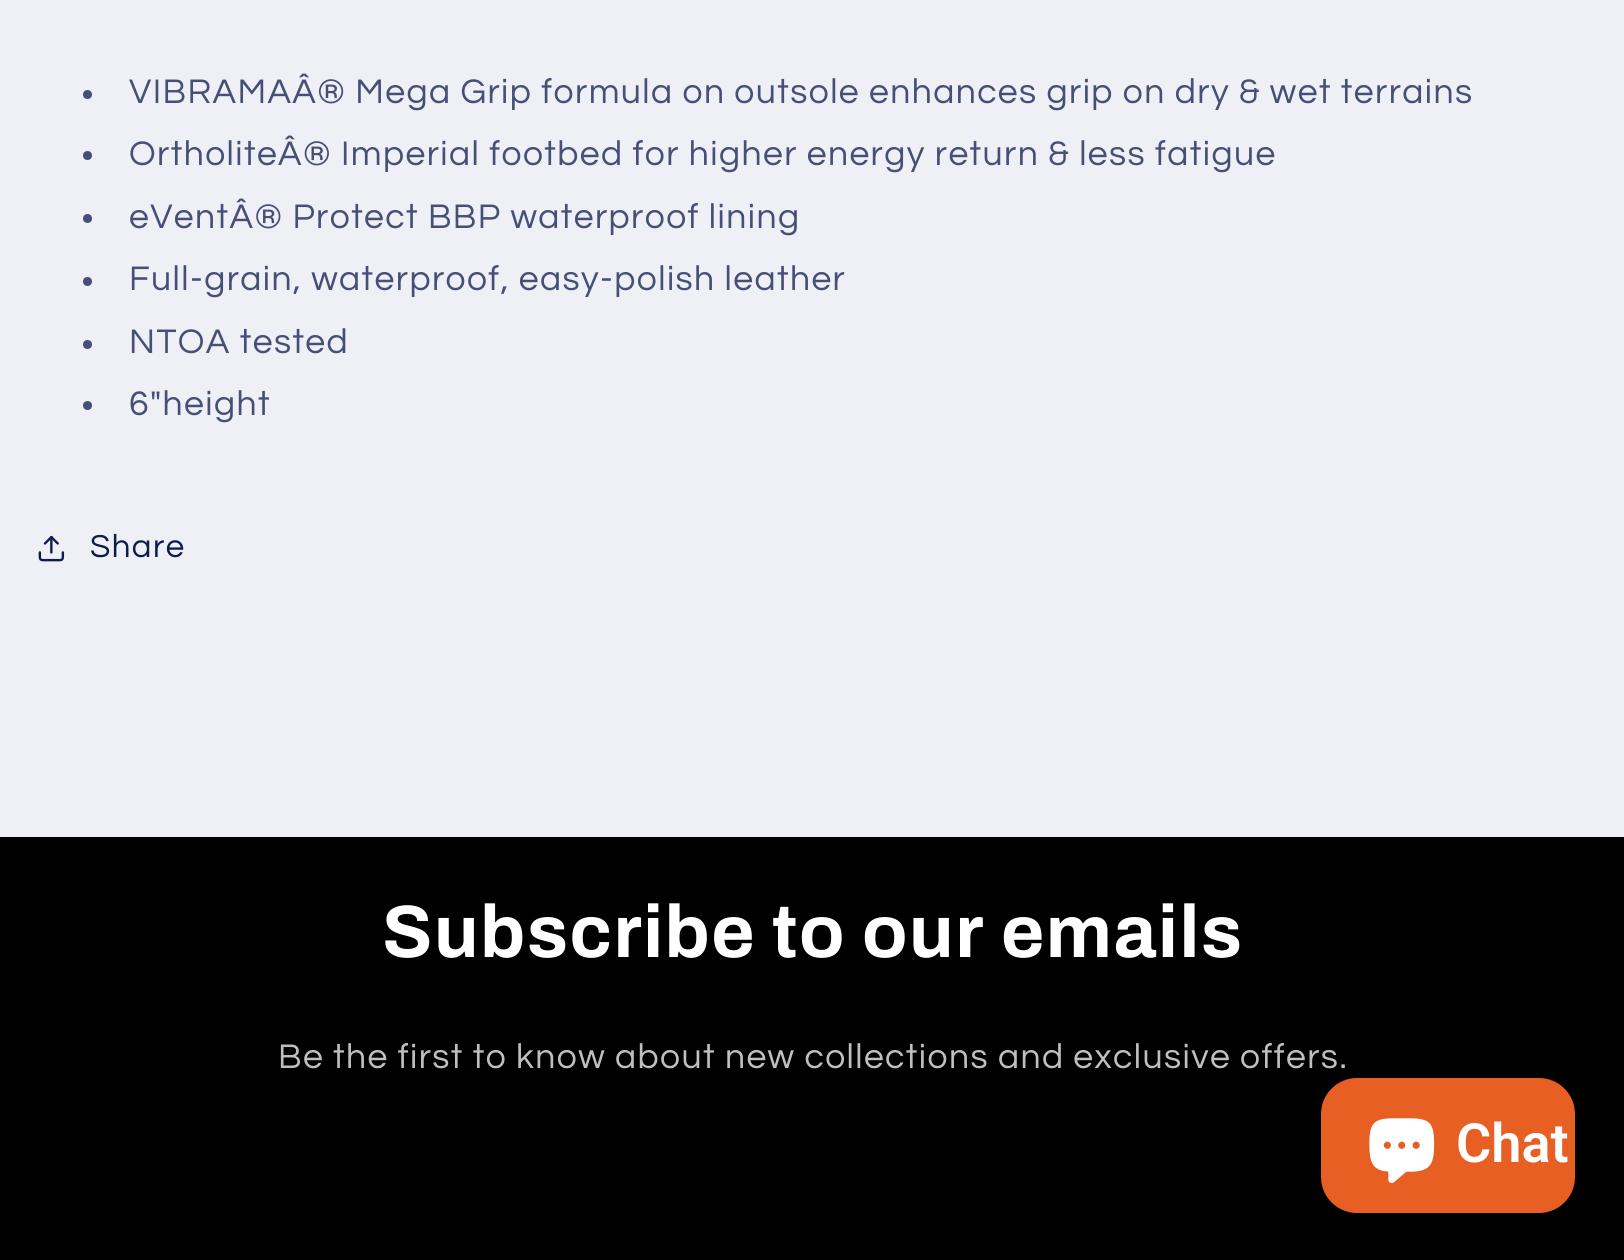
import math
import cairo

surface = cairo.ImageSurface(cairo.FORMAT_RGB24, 1624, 1260)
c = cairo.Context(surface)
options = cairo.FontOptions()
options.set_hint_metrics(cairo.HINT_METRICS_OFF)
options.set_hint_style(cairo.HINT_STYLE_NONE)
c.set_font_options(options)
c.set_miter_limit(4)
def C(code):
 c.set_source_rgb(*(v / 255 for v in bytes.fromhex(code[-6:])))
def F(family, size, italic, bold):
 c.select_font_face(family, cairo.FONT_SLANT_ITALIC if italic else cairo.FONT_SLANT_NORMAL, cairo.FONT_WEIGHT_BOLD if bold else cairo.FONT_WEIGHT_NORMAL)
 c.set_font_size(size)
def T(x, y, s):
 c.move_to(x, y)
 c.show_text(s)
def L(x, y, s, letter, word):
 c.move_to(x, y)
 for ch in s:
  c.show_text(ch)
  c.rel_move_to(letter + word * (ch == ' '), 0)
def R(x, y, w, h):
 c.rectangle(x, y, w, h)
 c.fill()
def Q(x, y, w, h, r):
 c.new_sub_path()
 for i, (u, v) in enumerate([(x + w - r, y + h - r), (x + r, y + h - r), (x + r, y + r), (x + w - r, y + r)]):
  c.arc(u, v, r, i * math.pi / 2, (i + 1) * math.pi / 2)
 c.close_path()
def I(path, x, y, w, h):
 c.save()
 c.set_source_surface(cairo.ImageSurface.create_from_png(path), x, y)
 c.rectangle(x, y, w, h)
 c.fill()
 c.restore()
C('eff0f5')
c.paint()
C('465077')
c.arc(87.5,94.5,4.5,0,2 * math.pi)
c.fill()
F('Questrial',35.45,0,0)
L(129,103,'VIBRAMAÂ® Mega Grip formula on outsole enhances grip on dry & wet terrains',1.42,0)
c.new_path()
c.arc(87.5,155.5,4.5,0,2 * math.pi)
c.fill()
L(129,165,'OrtholiteÂ® Imperial footbed for higher energy return & less fatigue',1.42,0)
c.new_path()
c.arc(87.5,218.5,4.5,0,2 * math.pi)
c.fill()
L(129,228,'eVentÂ® Protect BBP waterproof lining',1.42,0)
c.new_path()
c.arc(87.5,281.5,4.5,0,2 * math.pi)
c.fill()
L(129,290,'Full-grain, waterproof, easy-polish leather',1.42,0)
c.new_path()
c.arc(87.5,344.5,4.5,0,2 * math.pi)
c.fill()
L(129,353,'NTOA tested',1.42,0)
c.new_path()
c.arc(87.5,405.5,4.5,0,2 * math.pi)
c.fill()
L(129,415,'6"height',1.42,0)
I('1.png',38,535,27,27)
F('Questrial',33,0,0)
C('0e1b4d')
L(90,557,'Share',1.42,0)
C('000000')
R(0,837,1624,423)
F('Archivo',74.25,0,1)
C('ffffff')
L(382,957,'Subscribe to our emails',1.5,0)
F('Questrial',35.45,0,0)
C('bfbfbf')
L(278,1068,'Be the first to know about new collections and exclusive offers.',1.42,0)
C('e85f23')
Q(1321,1078,254,135,36)
c.fill()
I('2.png',1369,1118,66,65)
F('Roboto SemiBold',54,0,0)
C('ffffff')
T(1456,1162,'Chat')
surface.write_to_png('o.png')
